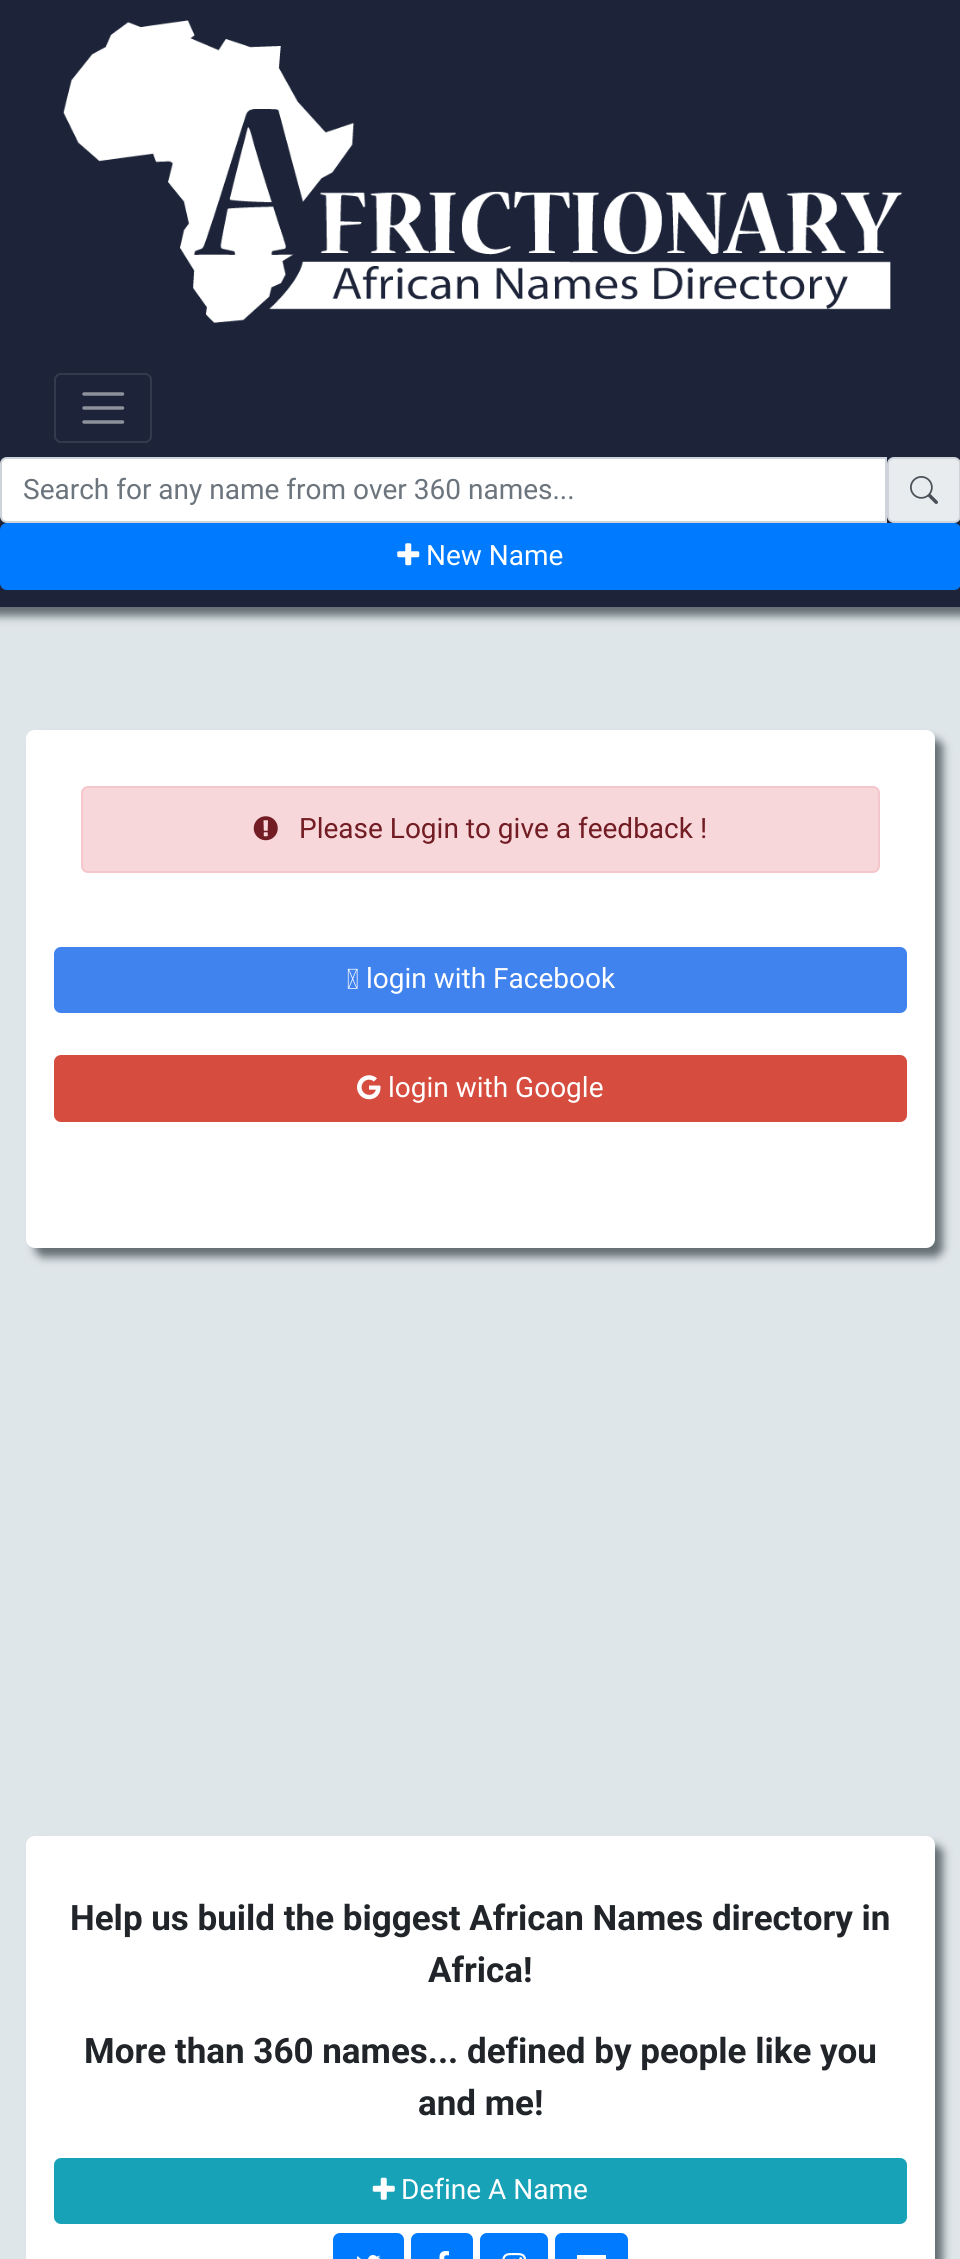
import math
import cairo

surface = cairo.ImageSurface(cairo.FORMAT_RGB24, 960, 2259)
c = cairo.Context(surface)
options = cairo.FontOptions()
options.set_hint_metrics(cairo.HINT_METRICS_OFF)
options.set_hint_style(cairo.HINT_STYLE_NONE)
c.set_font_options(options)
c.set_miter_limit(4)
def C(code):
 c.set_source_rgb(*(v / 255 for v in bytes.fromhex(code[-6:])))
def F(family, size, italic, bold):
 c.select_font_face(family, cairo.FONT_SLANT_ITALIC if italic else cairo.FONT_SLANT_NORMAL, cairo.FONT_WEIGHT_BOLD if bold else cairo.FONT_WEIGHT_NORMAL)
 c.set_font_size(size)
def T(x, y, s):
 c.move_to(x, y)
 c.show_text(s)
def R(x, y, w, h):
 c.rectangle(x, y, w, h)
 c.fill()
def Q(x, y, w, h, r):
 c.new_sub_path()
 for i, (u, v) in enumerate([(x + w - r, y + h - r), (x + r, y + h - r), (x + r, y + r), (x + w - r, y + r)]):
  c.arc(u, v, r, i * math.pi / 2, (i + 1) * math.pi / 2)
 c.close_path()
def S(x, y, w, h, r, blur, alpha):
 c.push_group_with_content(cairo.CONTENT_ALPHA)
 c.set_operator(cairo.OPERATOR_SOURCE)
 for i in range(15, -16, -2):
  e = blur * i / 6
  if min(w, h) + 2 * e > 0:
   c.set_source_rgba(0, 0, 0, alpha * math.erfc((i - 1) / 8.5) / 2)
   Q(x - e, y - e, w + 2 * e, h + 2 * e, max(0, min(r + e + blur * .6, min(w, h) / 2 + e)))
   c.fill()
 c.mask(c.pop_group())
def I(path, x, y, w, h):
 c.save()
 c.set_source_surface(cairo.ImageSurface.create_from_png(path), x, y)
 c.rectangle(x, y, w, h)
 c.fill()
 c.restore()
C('dfe6e9')
c.paint()
C('636e72')
S(-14,466,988,150,0,4.5,1)
C('1d2439')
R(0,0,960,607)
I('1.png',63,20,840,303)
Q(55,374,96,68,6)
C('343a4d')
c.stroke()
c.new_path()
c.move_to(84,394)
c.line_to(122.5,394)
c.move_to(84,408)
c.line_to(122.5,408)
c.move_to(84,422)
c.line_to(122.5,422)
C('8e929c')
c.set_line_width(3.5)
c.set_line_cap(cairo.LINE_CAP_ROUND)
c.stroke()
C('ffffff')
c.new_path()
c.move_to(7,458)
c.line_to(886,458)
c.line_to(886,522)
c.line_to(7,522)
c.curve_to(3.5,522,1,519.5,1,516)
c.line_to(1,464)
c.curve_to(1,460.5,3.5,458,7,458)
c.close_path()
c.fill_preserve()
C('ced4da')
c.set_line_width(2)
c.set_line_cap(cairo.LINE_CAP_BUTT)
c.stroke()
F('Roboto',28,0,0)
C('6c757d')
T(23,499,'Search for any name from over 360 names...')
C('e9ecef')
Q(888,458,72,64,6)
c.fill_preserve()
C('ced4da')
c.stroke()
I('2.png',910,476,28,28)
C('007bff')
Q(1,524,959,65,6)
c.fill_preserve()
c.stroke()
I('3.png',397,543,23,23)
C('ffffff')
T(426,565,'New Name')
C('636e72')
S(35,739,908,518,9,4.5,1)
C('ffffff')
Q(26,730,909,518,9)
c.fill()
C('f8d7da')
Q(82,787,797,85,6)
c.fill_preserve()
C('f5c6cb')
c.stroke()
I('4.png',253,816,25,25)
C('721c24')
T(299,838,'Please Login to give a feedback !')
C('4082ee')
Q(55,948,851,64,6)
c.fill_preserve()
c.stroke()
I('5.png',347,968,11,21)
C('ffffff')
T(366,988,'login with Facebook')
C('d64c3f')
Q(55,1056,851,65,6)
c.fill_preserve()
c.stroke()
I('6.png',357,1075,24,25)
C('ffffff')
T(388,1097,'login with Google')
C('636e72')
S(35,1845,908,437,9,4.5,1)
C('ffffff')
Q(26,1836,909,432,9)
c.fill()
F('Roboto',35,0,1)
C('212529')
T(70,1930,'Help us build the biggest African Names directory in')
T(428,1982,'Africa!')
T(84,2063,'More than 360 names... defined by people like you')
T(418,2115,'and me!')
C('17a2b8')
Q(55,2159,851,64,6)
c.fill_preserve()
c.stroke()
I('7.png',372,2177,23,23)
F('Roboto',28,0,0)
C('ffffff')
T(401,2199,'Define A Name')
C('007bff')
Q(334,2234,69,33,6)
c.fill_preserve()
c.stroke()
I('8.png',357,2255,24,4)
Q(412,2234,60,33,6)
c.fill_preserve()
c.stroke()
I('9.png',439,2251,10,8)
Q(481,2234,66,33,6)
c.fill_preserve()
c.stroke()
I('10.png',502,2253,24,6)
Q(556,2234,71,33,6)
c.fill_preserve()
c.stroke()
C('ffffff')
R(577,2255,29,4)
surface.write_to_png('o.png')
